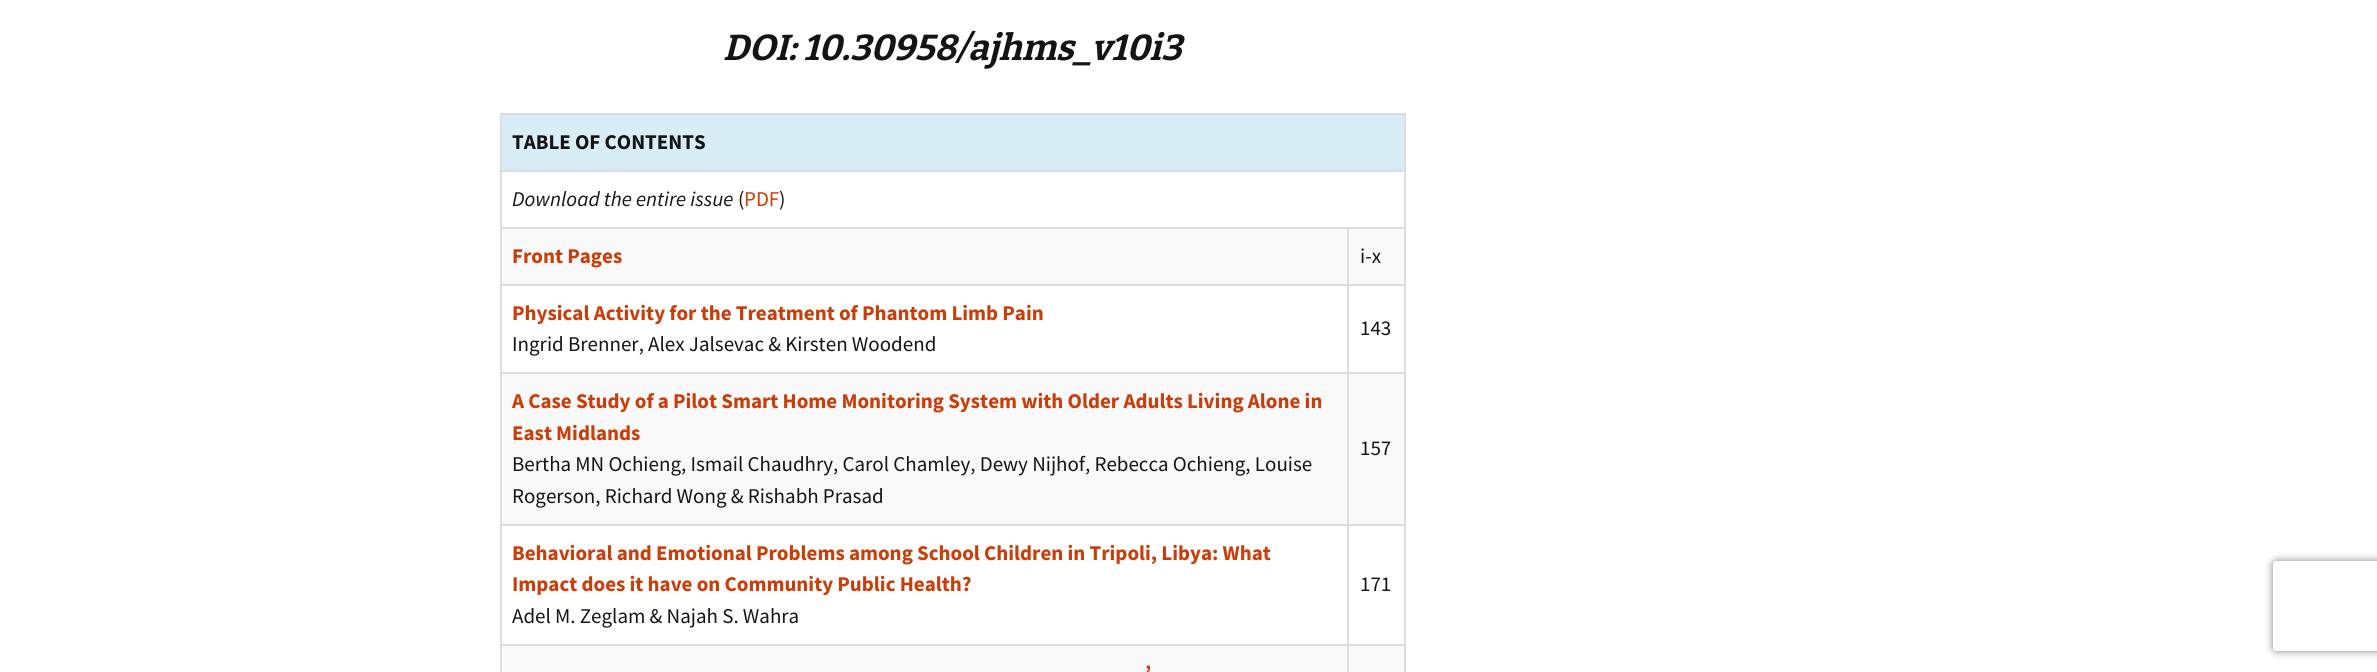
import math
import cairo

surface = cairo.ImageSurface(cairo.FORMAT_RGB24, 2377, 672)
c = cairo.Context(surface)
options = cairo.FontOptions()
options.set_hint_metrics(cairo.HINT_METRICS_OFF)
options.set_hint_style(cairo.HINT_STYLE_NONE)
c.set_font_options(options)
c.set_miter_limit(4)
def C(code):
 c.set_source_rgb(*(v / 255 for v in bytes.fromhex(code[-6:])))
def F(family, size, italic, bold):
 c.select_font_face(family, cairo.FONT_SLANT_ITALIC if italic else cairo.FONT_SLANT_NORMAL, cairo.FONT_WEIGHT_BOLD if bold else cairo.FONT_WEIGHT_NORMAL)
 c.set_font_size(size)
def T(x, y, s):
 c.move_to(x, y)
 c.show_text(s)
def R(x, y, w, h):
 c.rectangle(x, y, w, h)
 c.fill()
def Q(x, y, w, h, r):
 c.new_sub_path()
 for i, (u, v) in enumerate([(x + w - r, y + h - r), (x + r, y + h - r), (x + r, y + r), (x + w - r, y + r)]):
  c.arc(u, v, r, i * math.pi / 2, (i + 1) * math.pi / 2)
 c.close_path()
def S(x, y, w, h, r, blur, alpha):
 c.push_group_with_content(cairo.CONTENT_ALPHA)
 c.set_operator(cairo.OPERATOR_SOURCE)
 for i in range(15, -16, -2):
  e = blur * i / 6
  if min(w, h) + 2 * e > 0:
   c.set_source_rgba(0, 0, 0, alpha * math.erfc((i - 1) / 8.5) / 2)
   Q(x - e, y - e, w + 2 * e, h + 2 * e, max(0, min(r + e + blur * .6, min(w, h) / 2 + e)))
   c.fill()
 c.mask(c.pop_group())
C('ffffff')
c.paint()
F('Bitter Thin',36,1,0)
C('141412')
T(723,60,'DOI: 10.30958/ajhms_v10i3')
C('d9edf7')
R(502,115,902,55)
C('dddddd')
R(500,113,906,2)
R(500,170,906,2)
R(1347,227,59,2)
R(1347,284,59,2)
R(1347,372,59,2)
R(1347,524,59,2)
R(1347,644,59,2)
R(1404,644,2,28)
R(1404,524,2,121)
R(1404,372,2,153)
R(1404,284,2,90)
R(1404,227,2,58)
R(1404,170,2,58)
R(1404,113,2,58)
R(1347,644,2,28)
R(500,644,849,2)
R(1347,524,2,121)
R(500,524,849,2)
R(1347,372,2,153)
R(500,372,849,2)
R(1347,284,2,90)
R(500,284,849,2)
R(1347,227,2,58)
R(500,227,849,2)
R(500,644,2,28)
R(500,524,2,121)
R(500,372,2,153)
R(500,284,2,90)
R(500,227,2,58)
R(500,170,2,58)
R(500,113,2,58)
F('Source Sans Pro',21,0,1)
C('141412')
T(512,149,'TABLE OF CONTENTS')
F('Source Sans Pro',21,1,0)
T(512,206,'Download the entire issue')
F('Source Sans Pro',21,0,0)
T(738,206,'(')
C('ca3c08')
T(744,206,'PDF')
C('141412')
T(779,206,')')
C('f9f9f9')
R(502,229,845,55)
F('Source Sans Pro',21,0,1)
C('ca3c08')
T(512,263,'Front Pages')
C('f9f9f9')
R(1349,229,55,55)
F('Source Sans Pro',21,0,0)
C('141412')
T(1360,263,'i-x')
F('Source Sans Pro',21,0,1)
C('ca3c08')
T(512,320,'Physical Activity for the Treatment of Phantom Limb Pain')
F('Source Sans Pro',21,0,0)
C('141412')
T(512,351,'Ingrid Brenner, Alex Jalsevac & Kirsten Woodend')
T(1360,335,'143')
C('f9f9f9')
R(502,374,845,150)
F('Source Sans Pro',21,0,1)
C('ca3c08')
T(512,408,'A Case Study of a Pilot Smart Home Monitoring System with Older Adults Living Alone in')
T(512,440,'East Midlands')
F('Source Sans Pro',21,0,0)
C('141412')
T(512,471,'Bertha MN Ochieng, Ismail Chaudhry, Carol Chamley, Dewy Nijhof, Rebecca Ochieng, Louise')
T(512,503,'Rogerson, Richard Wong & Rishabh Prasad')
C('f9f9f9')
R(1349,374,55,150)
C('141412')
T(1360,455,'157')
F('Source Sans Pro',21,0,1)
C('ca3c08')
T(512,560,'Behavioral and Emotional Problems among School Children in Tripoli, Libya: What')
T(512,591,'Impact does it have on Community Public Health?')
F('Source Sans Pro',21,0,0)
C('141412')
T(512,623,'Adel M. Zeglam & Najah S. Wahra')
T(1360,591,'171')
C('f9f9f9')
R(502,646,845,26)
F('Source Sans Pro',21,0,1)
C('ca3c08')
T(1145,680,'’')
C('f9f9f9')
R(1349,646,55,26)
c.save()
c.set_fill_rule(cairo.FILL_RULE_EVEN_ODD)
c.new_path()
c.move_to(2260,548)
c.line_to(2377,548)
c.line_to(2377,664)
c.line_to(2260,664)
c.close_path()
c.move_to(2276,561)
c.line_to(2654,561)
c.curve_to(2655.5,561,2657,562.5,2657,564)
c.line_to(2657,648)
c.curve_to(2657,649.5,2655.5,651,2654,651)
c.line_to(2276,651)
c.curve_to(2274.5,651,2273,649.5,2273,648)
c.line_to(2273,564)
c.curve_to(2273,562.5,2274.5,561,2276,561)
c.close_path()
c.clip()
C('808080')
S(2273,561,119,90,3,4,1)
c.restore()
surface.write_to_png('o.png')
